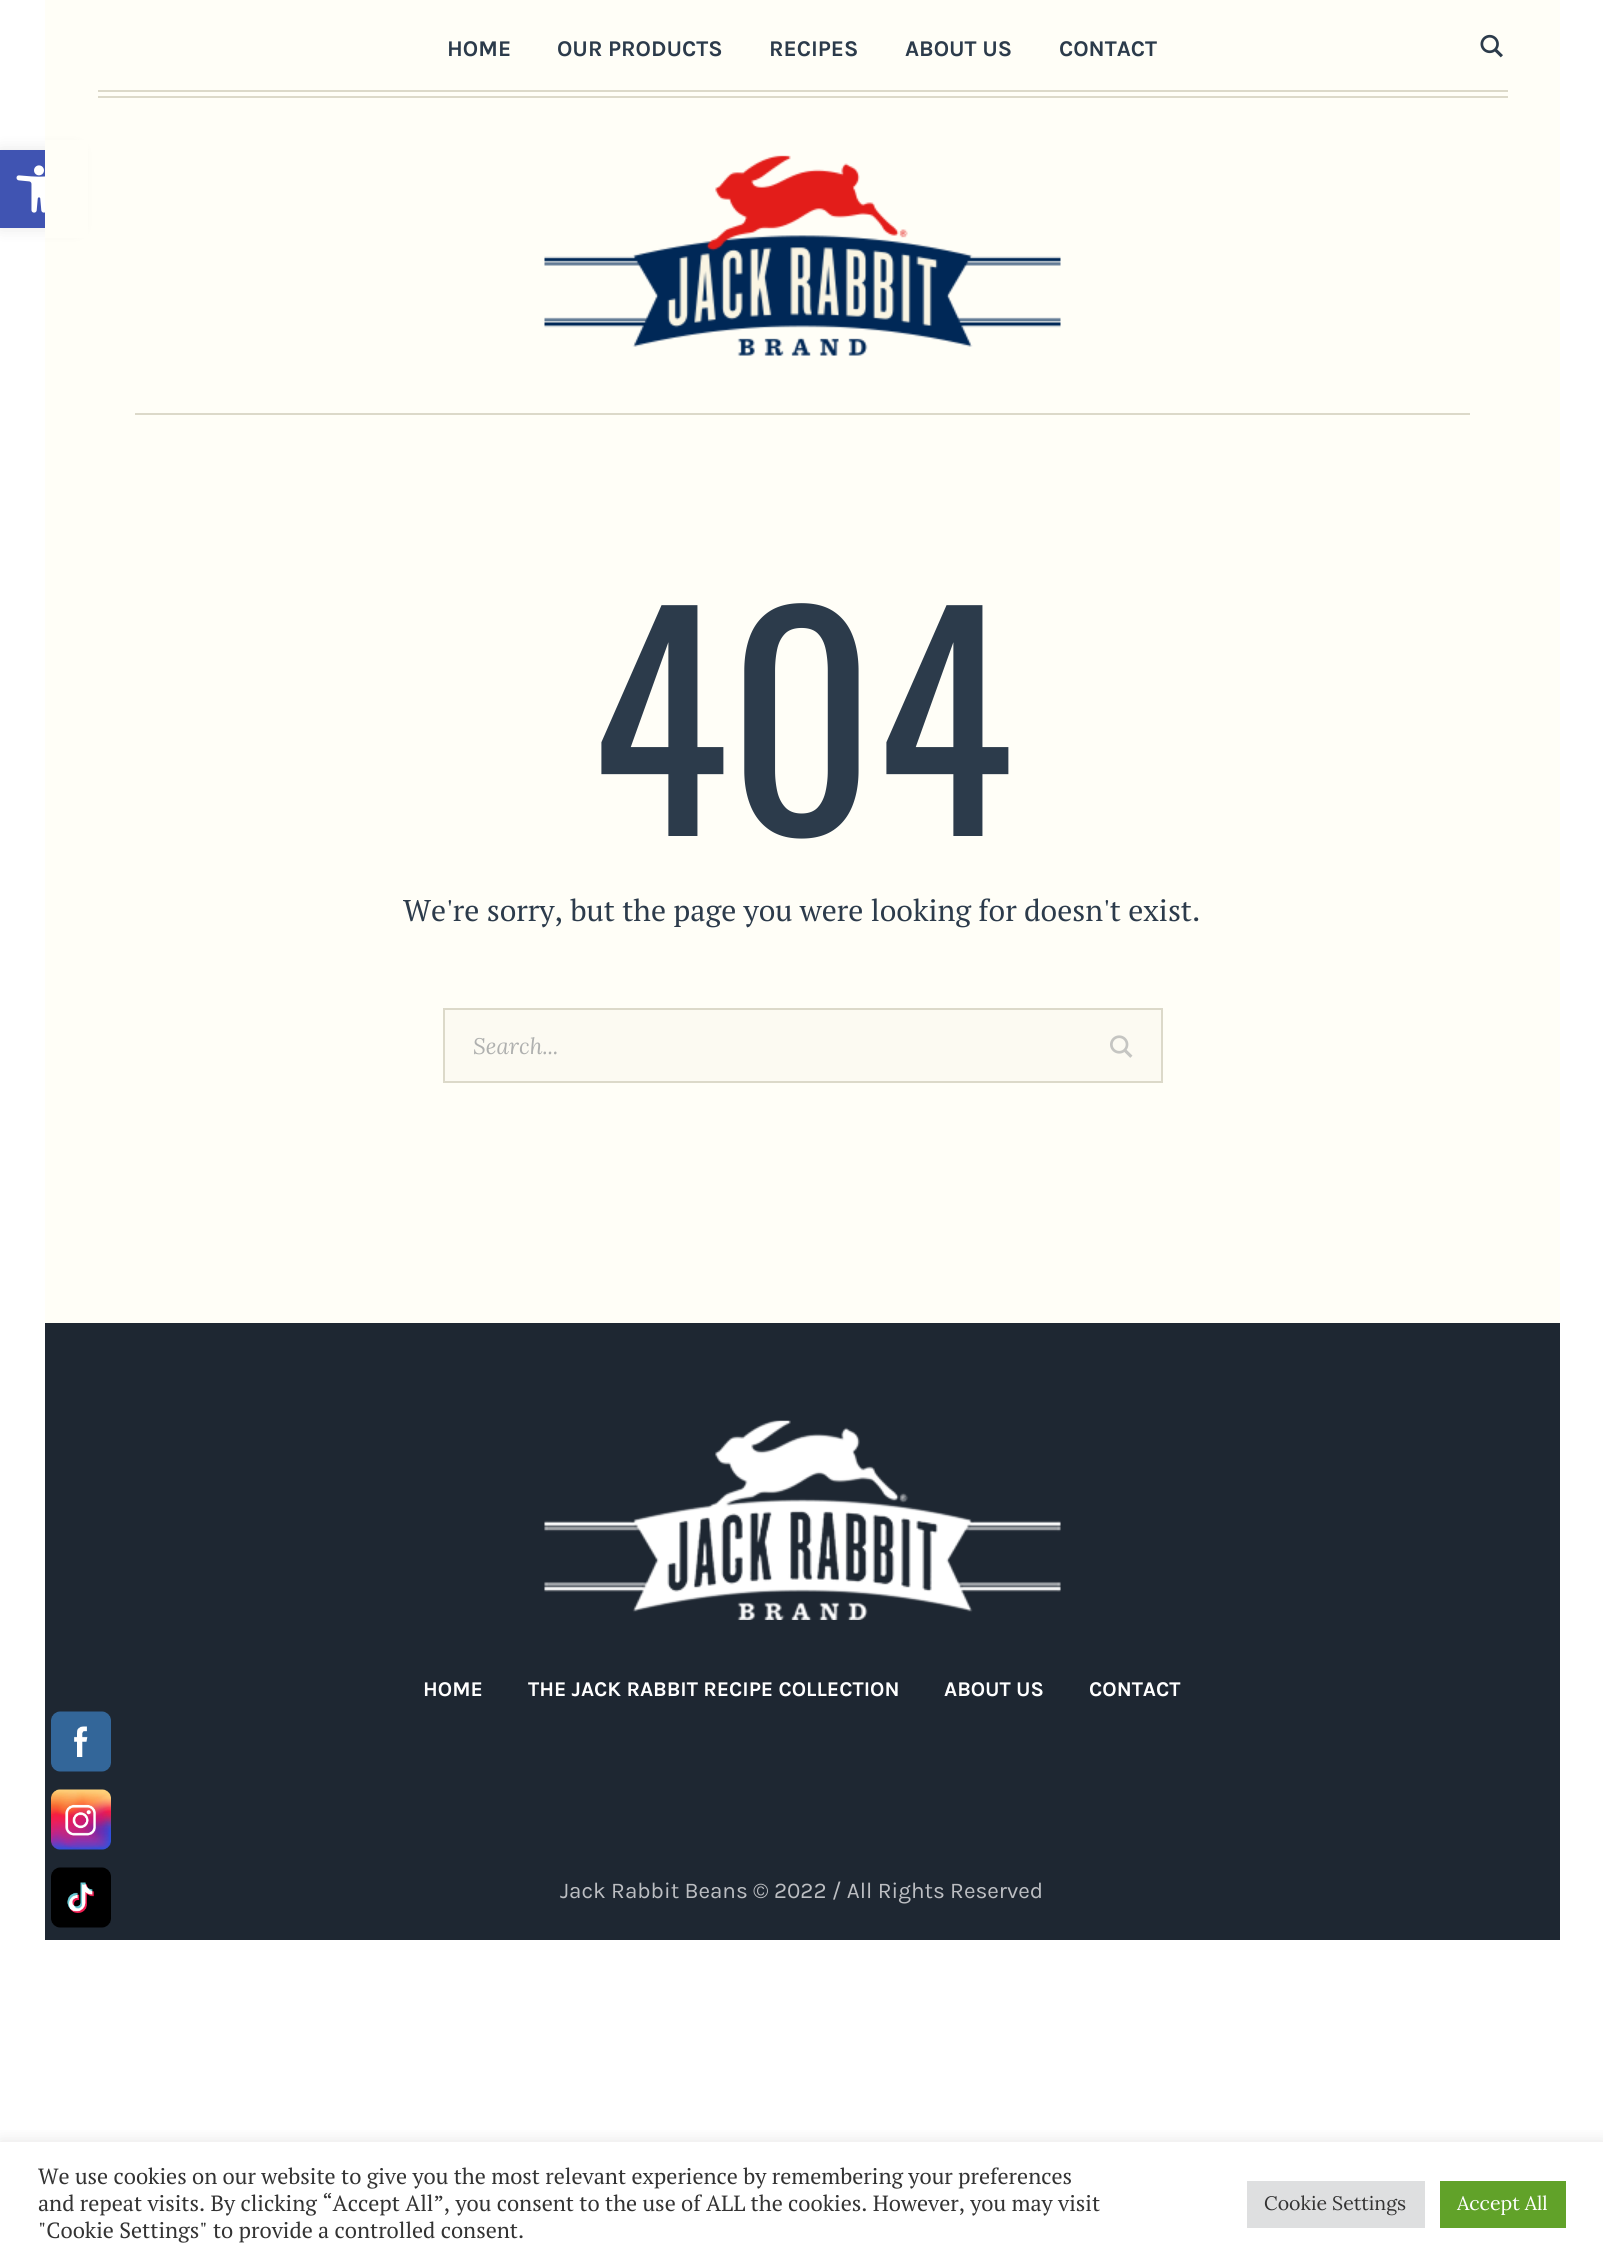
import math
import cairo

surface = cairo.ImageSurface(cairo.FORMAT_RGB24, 1603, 2265)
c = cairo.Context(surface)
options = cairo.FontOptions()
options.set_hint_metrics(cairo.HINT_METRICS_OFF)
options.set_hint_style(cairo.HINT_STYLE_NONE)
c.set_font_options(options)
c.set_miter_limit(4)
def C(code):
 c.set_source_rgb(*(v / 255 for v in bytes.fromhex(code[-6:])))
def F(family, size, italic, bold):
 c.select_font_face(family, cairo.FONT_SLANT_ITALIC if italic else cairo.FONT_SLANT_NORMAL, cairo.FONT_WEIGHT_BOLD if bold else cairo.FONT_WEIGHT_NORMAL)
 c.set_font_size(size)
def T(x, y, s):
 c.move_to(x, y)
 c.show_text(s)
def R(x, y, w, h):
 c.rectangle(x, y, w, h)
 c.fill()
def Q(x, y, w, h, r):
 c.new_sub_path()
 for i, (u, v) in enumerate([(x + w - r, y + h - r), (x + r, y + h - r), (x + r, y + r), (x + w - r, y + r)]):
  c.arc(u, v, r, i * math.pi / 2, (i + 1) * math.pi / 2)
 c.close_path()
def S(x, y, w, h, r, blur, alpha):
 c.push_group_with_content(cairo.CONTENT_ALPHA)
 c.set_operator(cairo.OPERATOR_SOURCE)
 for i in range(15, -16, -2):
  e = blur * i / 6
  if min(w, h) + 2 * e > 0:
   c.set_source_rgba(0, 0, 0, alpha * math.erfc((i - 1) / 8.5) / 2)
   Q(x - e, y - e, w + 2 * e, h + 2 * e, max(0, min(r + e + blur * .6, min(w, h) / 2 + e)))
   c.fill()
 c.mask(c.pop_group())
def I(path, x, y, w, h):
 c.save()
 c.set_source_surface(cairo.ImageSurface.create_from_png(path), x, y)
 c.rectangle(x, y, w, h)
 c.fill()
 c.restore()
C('ffffff')
c.paint()
C('fffef7')
R(45,0,1515,1323)
C('000000')
S(0,150,78,78,0,7.5,.1)
C('4054b2')
R(0,150,45,78)
I('1.png',16,165,29,48)
C('dcd9c9')
R(98,90,1410,2)
R(98,96,1410,2)
F('Karla',22.5,0,1)
C('2c3b4b')
T(447,56,'HOME')
T(557,56,'OUR PRODUCTS')
T(769,56,'RECIPES')
T(905,56,'ABOUT US')
T(1059,56,'CONTACT')
I('2.png',1480,34,23,24)
C('fffef7')
R(45,140,43,98)
I('3.png',544,155,517,201)
C('dcd9c9')
R(135,413,1335,2)
F('Oswald',285,0,0)
C('2c3b4b')
T(590,836,'404')
F('PT Serif',30,0,0)
T(403,921,'We\'re sorry, but the page you were looking for doesn\'t exist.')
C('fcfaf2')
c.rectangle(444,1009,718,73)
c.fill_preserve()
C('dcd9c9')
c.stroke()
F('Lora',22.5,1,0)
C('afb0af')
T(473,1054,'Search...')
I('4.png',1110,1035,23,23)
C('1e2732')
R(45,1323,1515,617)
I('5.png',544,1420,517,200)
F('Karla',21,0,1)
C('ffffff')
T(423,1696,'HOME')
T(528,1696,'THE JACK RABBIT RECIPE COLLECTION')
T(944,1696,'ABOUT US')
T(1089,1696,'CONTACT')
F('Karla',22.5,0,0)
C('bcbec2')
T(560,1898,'Jack Rabbit Beans © 2022 / All Rights Reserved')
I('6.png',51,1711,60,61)
I('7.png',51,1789,60,61)
I('8.png',51,1867,60,61)
c.save()
c.rectangle(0,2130,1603,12)
c.clip()
C('acabab')
S(0,2141,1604,123,0,7.5,.3)
c.restore()
F('PT Serif',22,0,0)
C('333333')
T(38,2184,'We use cookies on our website to give you the most relevant experience by remembering your preferences')
T(38,2211,'and repeat visits. By clicking “Accept All”, you consent to the use of ALL the cookies. However, you may visit')
T(38,2238,'"Cookie Settings" to provide a controlled consent.')
C('dedfe0')
R(1247,2181,178,47)
F('Lora',19.5,0,0)
C('333333')
T(1264,2210,'Cookie Settings')
C('61a229')
R(1440,2181,126,47)
C('ffffff')
T(1457,2210,'Accept All')
surface.write_to_png('o.png')
